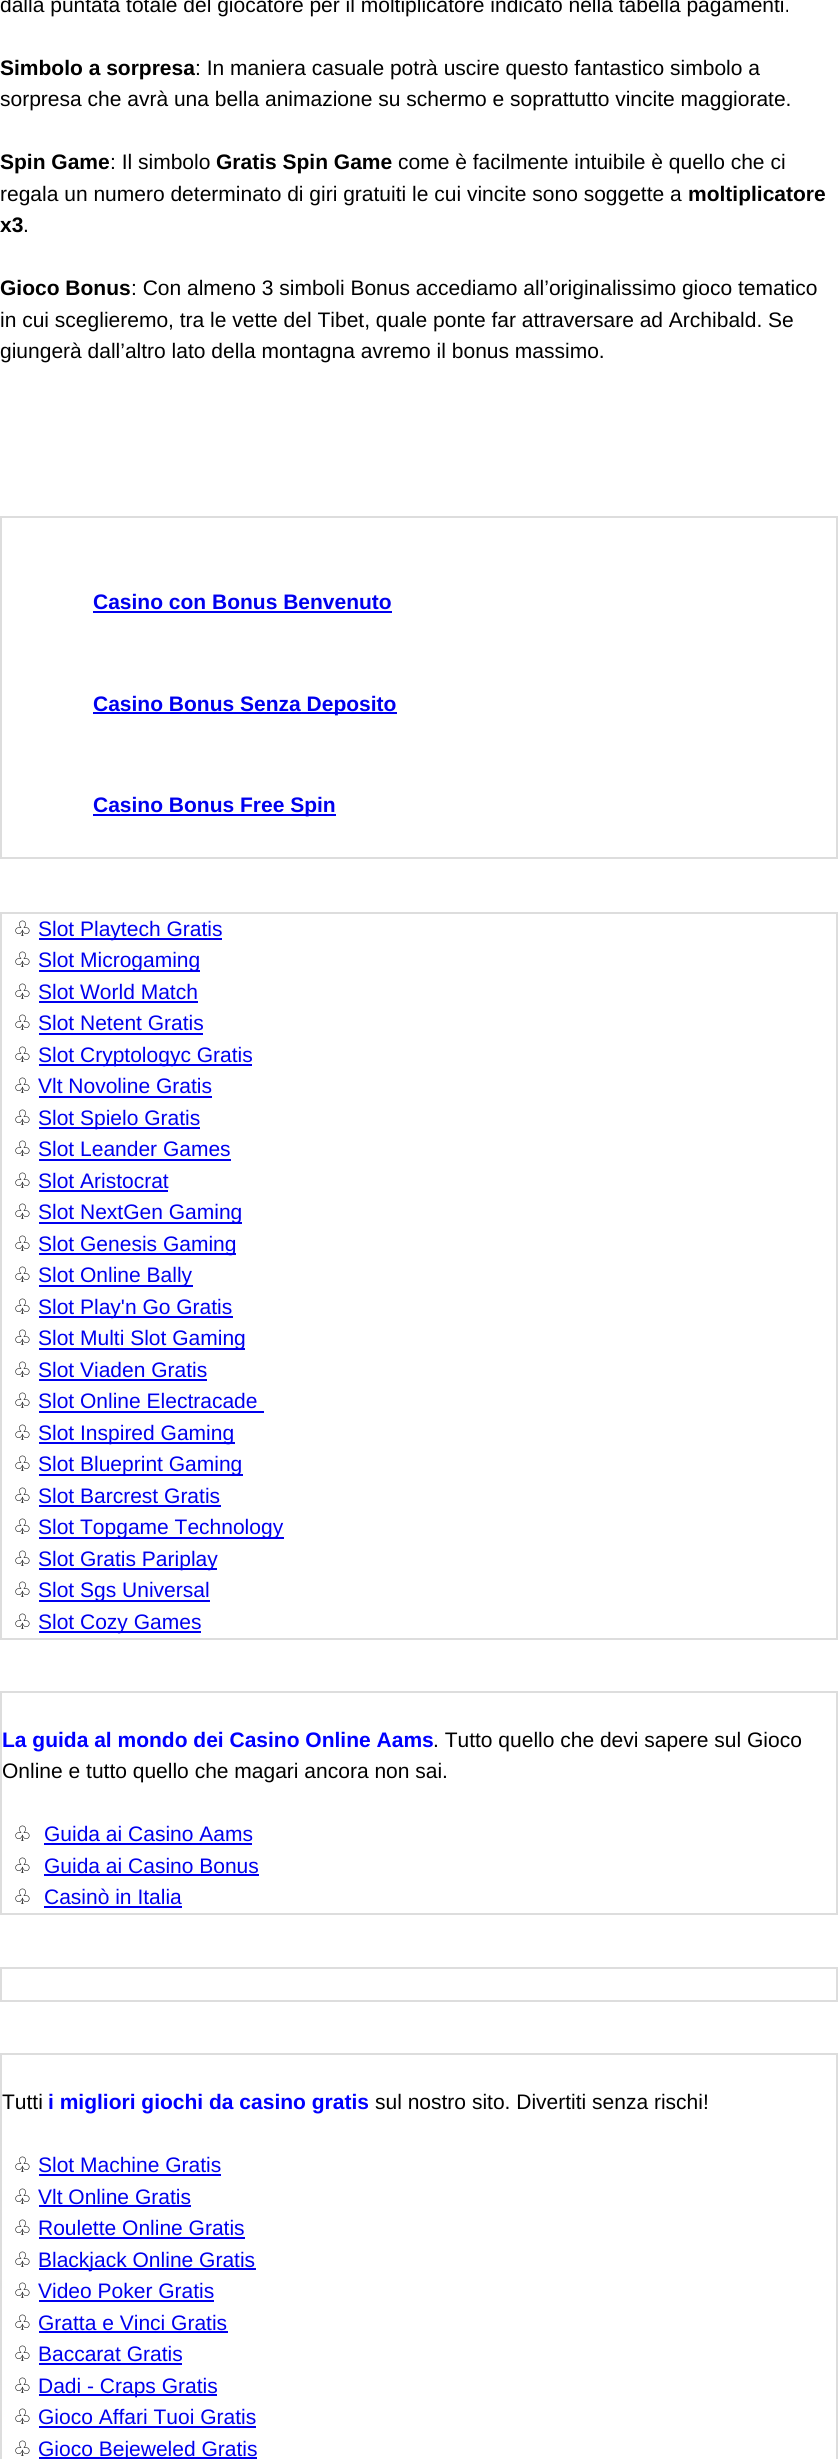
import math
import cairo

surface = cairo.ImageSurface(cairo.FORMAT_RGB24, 838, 2459)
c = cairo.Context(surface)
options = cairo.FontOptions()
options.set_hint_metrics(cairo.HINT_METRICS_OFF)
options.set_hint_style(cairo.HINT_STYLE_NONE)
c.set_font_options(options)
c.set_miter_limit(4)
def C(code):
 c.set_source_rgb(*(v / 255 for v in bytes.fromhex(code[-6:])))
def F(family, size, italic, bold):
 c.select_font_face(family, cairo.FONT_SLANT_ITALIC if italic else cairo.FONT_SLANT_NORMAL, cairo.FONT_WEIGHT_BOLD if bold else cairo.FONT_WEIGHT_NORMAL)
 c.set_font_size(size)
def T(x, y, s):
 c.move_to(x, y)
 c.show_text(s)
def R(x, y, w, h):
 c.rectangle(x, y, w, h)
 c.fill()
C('ffffff')
c.paint()
F('Liberation Sans',21,0,0)
C('000000')
T(0,12,'dalla puntata totale del giocatore per il moltiplicatore indicato nella tabella pagamenti.')
F('Liberation Sans',21,0,1)
T(0,75,'Simbolo a sorpresa')
F('Liberation Sans',21,0,0)
T(195,75,': In maniera casuale potrà uscire questo fantastico simbolo a')
T(0,106,'sorpresa che avrà una bella animazione su schermo e soprattutto vincite maggiorate.')
F('Liberation Sans',21,0,1)
T(0,169,'Spin Game')
F('Liberation Sans',21,0,0)
T(110,169,': Il simbolo')
F('Liberation Sans',21,0,1)
T(216,169,'Gratis Spin Game')
F('Liberation Sans',21,0,0)
T(398,169,'come è facilmente intuibile è quello che ci')
T(0,201,'regala un numero determinato di giri gratuiti le cui vincite sono soggette a')
F('Liberation Sans',21,0,1)
T(688,201,'moltiplicatore')
T(0,232,'x3')
F('Liberation Sans',21,0,0)
T(23,232,'.')
F('Liberation Sans',21,0,1)
T(0,295,'Gioco Bonus')
F('Liberation Sans',21,0,0)
T(131,295,': Con almeno 3 simboli Bonus accediamo all’originalissimo gioco tematico')
T(0,327,'in cui sceglieremo, tra le vette del Tibet, quale ponte far attraversare ad Archibald. Se')
T(0,358,'giungerà dall’altro lato della montagna avremo il bonus massimo.')
c.rectangle(1,517,836,341)
C('dddddd')
c.stroke()
F('Liberation Sans',21,0,1)
C('0000ee')
T(93,609,'Casino con Bonus Benvenuto')
R(93,611,299,2)
R(93,712,304,2)
T(93,711,'Casino Bonus Senza Deposito')
R(93,814,243,2)
T(93,812,'Casino Bonus Free Spin')
c.rectangle(1,913,836,726)
C('dddddd')
c.stroke()
F('DejaVu Sans',21,0,0)
C('000000')
T(13,936,'♧')
C('0000ee')
R(39,938,183,2)
F('Liberation Sans',21,0,0)
T(38,936,'Slot Playtech Gratis')
F('DejaVu Sans',21,0,0)
C('000000')
T(13,967,'♧')
C('0000ee')
R(39,970,161,2)
F('Liberation Sans',21,0,0)
T(38,967,'Slot Microgaming')
F('DejaVu Sans',21,0,0)
C('000000')
T(13,999,'♧')
F('Liberation Sans',21,0,0)
C('0000ee')
T(38,999,'Slot World Match')
R(39,1001,159,2)
F('DejaVu Sans',21,0,0)
C('000000')
T(13,1030,'♧')
F('Liberation Sans',21,0,0)
C('0000ee')
T(38,1030,'Slot Netent Gratis')
R(39,1033,164,2)
F('DejaVu Sans',21,0,0)
C('000000')
T(13,1062,'♧')
C('0000ee')
R(39,1064,213,2)
F('Liberation Sans',21,0,0)
T(38,1062,'Slot Cryptologyc Gratis')
F('DejaVu Sans',21,0,0)
C('000000')
T(13,1093,'♧')
F('Liberation Sans',21,0,0)
C('0000ee')
T(38,1093,'Vlt Novoline Gratis')
R(39,1096,173,2)
F('DejaVu Sans',21,0,0)
C('000000')
T(13,1125,'♧')
C('0000ee')
R(39,1127,161,2)
F('Liberation Sans',21,0,0)
T(38,1125,'Slot Spielo Gratis')
F('DejaVu Sans',21,0,0)
C('000000')
T(13,1156,'♧')
F('Liberation Sans',21,0,0)
C('0000ee')
T(38,1156,'Slot Leander Games')
R(39,1159,192,2)
F('DejaVu Sans',21,0,0)
C('000000')
T(13,1188,'♧')
F('Liberation Sans',21,0,0)
C('0000ee')
T(38,1188,'Slot Aristocrat')
R(39,1190,129,2)
F('DejaVu Sans',21,0,0)
C('000000')
T(13,1219,'♧')
C('0000ee')
R(39,1222,203,2)
F('Liberation Sans',21,0,0)
T(38,1219,'Slot NextGen Gaming')
F('DejaVu Sans',21,0,0)
C('000000')
T(13,1251,'♧')
C('0000ee')
R(39,1253,197,2)
F('Liberation Sans',21,0,0)
T(38,1251,'Slot Genesis Gaming')
F('DejaVu Sans',21,0,0)
C('000000')
T(13,1282,'♧')
C('0000ee')
R(39,1285,154,2)
F('Liberation Sans',21,0,0)
T(38,1282,'Slot Online Bally')
F('DejaVu Sans',21,0,0)
C('000000')
T(13,1314,'♧')
C('0000ee')
R(39,1316,194,2)
F('Liberation Sans',21,0,0)
T(38,1314,'Slot Play\'n Go Gratis')
F('DejaVu Sans',21,0,0)
C('000000')
T(13,1345,'♧')
C('0000ee')
R(39,1348,206,2)
F('Liberation Sans',21,0,0)
T(38,1345,'Slot Multi Slot Gaming')
F('DejaVu Sans',21,0,0)
C('000000')
T(13,1377,'♧')
F('Liberation Sans',21,0,0)
C('0000ee')
T(38,1377,'Slot Viaden Gratis')
R(39,1379,168,2)
F('DejaVu Sans',21,0,0)
C('000000')
T(13,1408,'♧')
F('Liberation Sans',21,0,0)
C('0000ee')
T(38,1408,'Slot Online Electracade')
R(39,1411,225,2)
F('DejaVu Sans',21,0,0)
C('000000')
T(13,1440,'♧')
C('0000ee')
R(39,1442,196,2)
F('Liberation Sans',21,0,0)
T(38,1440,'Slot Inspired Gaming')
F('DejaVu Sans',21,0,0)
C('000000')
T(13,1471,'♧')
C('0000ee')
R(39,1474,204,2)
F('Liberation Sans',21,0,0)
T(38,1471,'Slot Blueprint Gaming')
F('DejaVu Sans',21,0,0)
C('000000')
T(13,1503,'♧')
F('Liberation Sans',21,0,0)
C('0000ee')
T(38,1503,'Slot Barcrest Gratis')
R(39,1505,182,2)
F('DejaVu Sans',21,0,0)
C('000000')
T(13,1534,'♧')
C('0000ee')
R(39,1537,245,2)
F('Liberation Sans',21,0,0)
T(38,1534,'Slot Topgame Technology')
F('DejaVu Sans',21,0,0)
C('000000')
T(13,1566,'♧')
C('0000ee')
R(39,1568,178,2)
F('Liberation Sans',21,0,0)
T(38,1566,'Slot Gratis Pariplay')
F('DejaVu Sans',21,0,0)
C('000000')
T(13,1597,'♧')
C('0000ee')
R(39,1600,171,2)
F('Liberation Sans',21,0,0)
T(38,1597,'Slot Sgs Universal')
F('DejaVu Sans',21,0,0)
C('000000')
T(13,1629,'♧')
C('0000ee')
R(39,1631,162,2)
F('Liberation Sans',21,0,0)
T(38,1629,'Slot Cozy Games')
c.rectangle(1,1692,836,222)
C('dddddd')
c.stroke()
F('Liberation Sans',21,0,1)
C('0000ff')
T(2,1747,'La guida al mondo dei Casino Online Aams')
F('Liberation Sans',21,0,0)
C('000000')
T(433,1747,'. Tutto quello che devi sapere sul Gioco')
T(2,1778,'Online e tutto quello che magari ancora non sai.')
F('DejaVu Sans',21,0,0)
T(13,1841,'♧')
F('Liberation Sans',21,0,0)
C('0000ee')
T(44,1841,'Guida ai Casino Aams')
R(44,1843,208,2)
F('DejaVu Sans',21,0,0)
C('000000')
T(13,1873,'♧')
F('Liberation Sans',21,0,0)
C('0000ee')
T(44,1873,'Guida ai Casino Bonus')
R(44,1874,215,2)
F('DejaVu Sans',21,0,0)
C('000000')
T(13,1904,'♧')
F('Liberation Sans',21,0,0)
C('0000ee')
T(44,1904,'Casinò in Italia')
R(44,1906,138,2)
c.rectangle(1,1968,836,33)
C('dddddd')
c.stroke()
c.rectangle(1,2054,836,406)
c.stroke()
C('000000')
T(2,2109,'Tutti')
F('Liberation Sans',21,0,1)
C('0000ff')
T(48,2109,'i migliori giochi da casino gratis')
F('Liberation Sans',21,0,0)
C('000000')
T(375,2109,'sul nostro sito. Divertiti senza rischi!')
F('DejaVu Sans',21,0,0)
T(13,2172,'♧')
F('Liberation Sans',21,0,0)
C('0000ee')
T(38,2172,'Slot Machine Gratis')
R(39,2174,182,2)
F('DejaVu Sans',21,0,0)
C('000000')
T(13,2204,'♧')
F('Liberation Sans',21,0,0)
C('0000ee')
T(38,2204,'Vlt Online Gratis')
R(39,2205,152,2)
F('DejaVu Sans',21,0,0)
C('000000')
T(13,2235,'♧')
F('Liberation Sans',21,0,0)
C('0000ee')
T(38,2235,'Roulette Online Gratis')
R(39,2237,206,2)
F('DejaVu Sans',21,0,0)
C('000000')
T(13,2267,'♧')
C('0000ee')
R(39,2268,217,2)
F('Liberation Sans',21,0,0)
T(38,2267,'Blackjack Online Gratis')
F('DejaVu Sans',21,0,0)
C('000000')
T(13,2298,'♧')
F('Liberation Sans',21,0,0)
C('0000ee')
T(38,2298,'Video Poker Gratis')
R(39,2300,175,2)
F('DejaVu Sans',21,0,0)
C('000000')
T(13,2330,'♧')
F('Liberation Sans',21,0,0)
C('0000ee')
T(38,2330,'Gratta e Vinci Gratis')
R(39,2331,189,2)
F('DejaVu Sans',21,0,0)
C('000000')
T(13,2361,'♧')
F('Liberation Sans',21,0,0)
C('0000ee')
T(38,2361,'Baccarat Gratis')
R(39,2363,143,2)
F('DejaVu Sans',21,0,0)
C('000000')
T(13,2393,'♧')
C('0000ee')
R(39,2394,178,2)
F('Liberation Sans',21,0,0)
T(38,2393,'Dadi - Craps Gratis')
F('DejaVu Sans',21,0,0)
C('000000')
T(13,2424,'♧')
F('Liberation Sans',21,0,0)
C('0000ee')
T(38,2424,'Gioco Affari Tuoi Gratis')
R(39,2426,217,2)
F('DejaVu Sans',21,0,0)
C('000000')
T(13,2456,'♧')
C('0000ee')
R(39,2457,218,2)
F('Liberation Sans',21,0,0)
T(38,2456,'Gioco Bejeweled Gratis')
surface.write_to_png('o.png')
